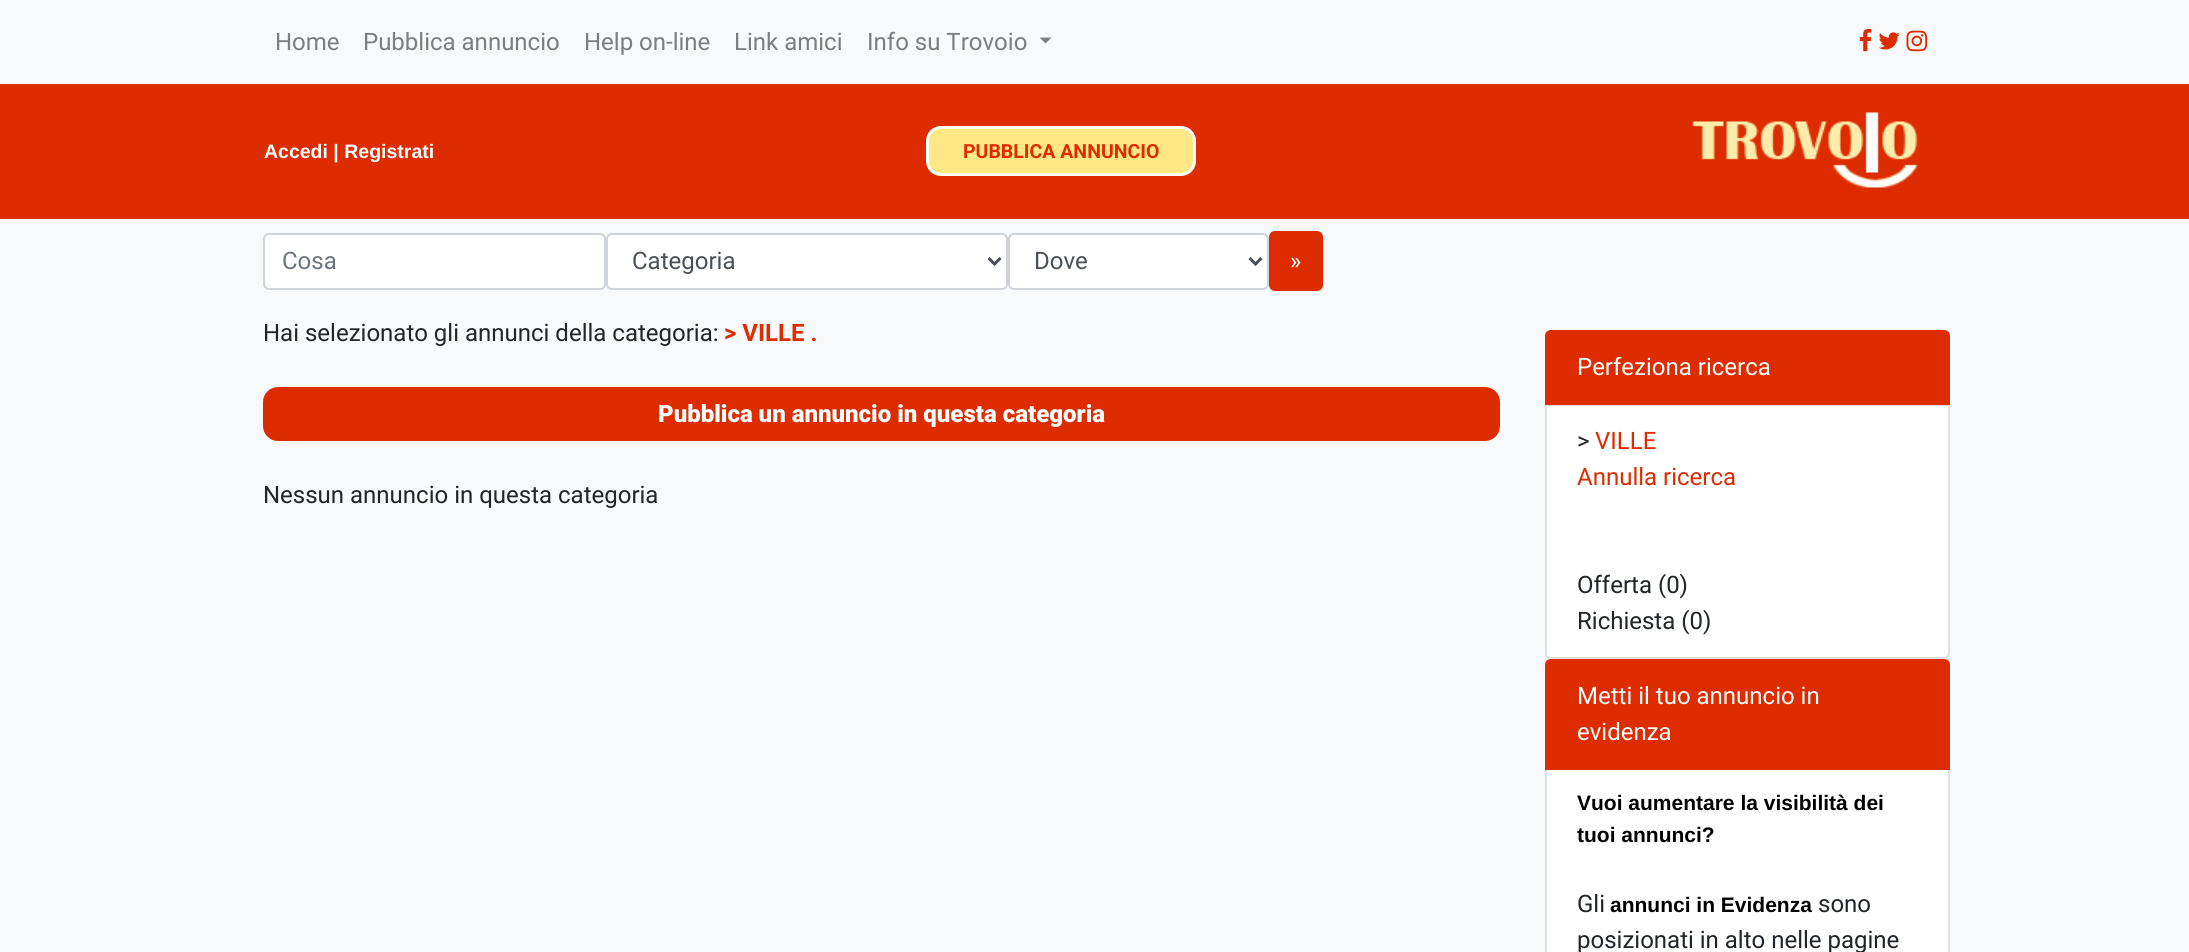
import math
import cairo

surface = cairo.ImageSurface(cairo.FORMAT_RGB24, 2189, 952)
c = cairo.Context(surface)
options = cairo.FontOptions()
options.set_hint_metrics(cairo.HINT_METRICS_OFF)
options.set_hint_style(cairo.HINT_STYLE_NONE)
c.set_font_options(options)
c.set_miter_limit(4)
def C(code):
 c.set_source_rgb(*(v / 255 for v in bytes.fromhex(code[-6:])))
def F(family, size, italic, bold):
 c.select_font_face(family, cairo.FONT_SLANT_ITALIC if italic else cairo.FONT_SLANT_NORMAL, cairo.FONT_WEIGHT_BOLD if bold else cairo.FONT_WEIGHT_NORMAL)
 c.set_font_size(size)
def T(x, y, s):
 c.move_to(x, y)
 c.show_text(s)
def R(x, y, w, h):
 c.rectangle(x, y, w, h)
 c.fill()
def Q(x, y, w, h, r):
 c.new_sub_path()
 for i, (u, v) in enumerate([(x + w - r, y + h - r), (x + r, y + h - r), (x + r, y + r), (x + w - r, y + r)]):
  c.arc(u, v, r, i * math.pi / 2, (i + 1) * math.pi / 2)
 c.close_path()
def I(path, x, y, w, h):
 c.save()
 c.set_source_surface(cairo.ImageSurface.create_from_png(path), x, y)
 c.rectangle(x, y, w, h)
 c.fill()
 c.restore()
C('f8f9fa')
c.paint()
F('Roboto',24,0,0)
C('7c7d7d')
T(275,50,'Home')
T(363,50,'Pubblica annuncio')
T(584,50,'Help on-line')
T(734,50,'Link amici')
T(867,50,'Info su Trovoio')
c.new_path()
c.move_to(1039.5,37.5)
c.line_to(1051.5,37.5)
c.line_to(1045.5,43.5)
c.close_path()
c.fill()
I('1.png',1859,28,13,24)
I('2.png',1878,32,22,18)
I('3.png',1906,30,22,22)
C('dd2c00')
R(0,84,2189,135)
F('Liberation Sans',19.5,0,1)
C('ffffff')
T(264,158,'Accedi | Registrati')
C('fee785')
Q(927.5,127.5,267,47,13.5)
c.fill_preserve()
C('ffffff')
c.set_line_width(3)
c.stroke()
F('Roboto',19.5,0,1)
C('dd2c00')
T(963,158,'PUBBLICA ANNUNCIO')
I('4.png',1691,112,227,76)
C('ffffff')
Q(264,234,341,55,5)
c.fill_preserve()
C('ced4da')
c.set_line_width(2)
c.stroke()
F('Roboto',24,0,0)
C('6c757d')
T(282,269,'Cosa')
C('ffffff')
Q(607,234,400,55,5)
c.fill_preserve()
C('ced4da')
c.stroke()
c.new_path()
c.move_to(988.5,258)
c.line_to(994.5,264)
c.line_to(1000.5,258)
C('495057')
c.set_line_width(3)
c.stroke()
T(632,269,'Categoria')
C('ffffff')
Q(1009,234,259,55,5)
c.fill_preserve()
C('ced4da')
c.set_line_width(2)
c.stroke()
c.new_path()
c.move_to(1249.5,258)
c.line_to(1255.5,264)
c.line_to(1261.5,258)
C('495057')
c.set_line_width(3)
c.stroke()
T(1034,269,'Dove')
C('dd2c00')
Q(1270.5,232.5,51,57,4.5)
c.fill_preserve()
c.stroke()
C('ffffff')
T(1290,269,'»')
C('212529')
T(263,341,'Hai selezionato gli annunci della categoria:')
F('Roboto',24,0,1)
C('dd2c00')
T(724,341,'> VILLE .')
Q(264,388,1235,52,14)
c.fill_preserve()
c.set_line_width(2)
c.stroke()
F('Roboto Black',24,0,0)
C('ffffff')
T(658,422,'Pubblica un annuncio in questa categoria')
F('Roboto',24,0,0)
C('212529')
T(263,503,'Nessun annuncio in questa categoria')
C('ffffff')
c.new_path()
c.move_to(1546,405)
c.line_to(1949,405)
c.line_to(1949,653)
c.curve_to(1949,656,1947,658,1944,658)
c.line_to(1551,658)
c.curve_to(1548,658,1546,656,1546,653)
c.close_path()
c.fill_preserve()
C('dfdfdf')
c.stroke()
C('dd2c00')
c.new_path()
c.move_to(1551,331)
c.line_to(1944,331)
c.curve_to(1947,331,1949,333,1949,336)
c.line_to(1949,404)
c.line_to(1546,404)
c.line_to(1546,336)
c.curve_to(1546,333,1548,331,1551,331)
c.close_path()
c.fill_preserve()
c.stroke()
C('ffffff')
T(1577,375,'Perfeziona ricerca')
C('212529')
T(1577,449,'>')
C('dd2c00')
T(1595,449,'VILLE')
T(1577,485,'Annulla ricerca')
C('212529')
T(1577,593,'Offerta (0)')
T(1577,629,'Richiesta (0)')
C('ffffff')
c.rectangle(1546,769,403,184)
c.fill_preserve()
C('dfdfdf')
c.stroke()
C('dd2c00')
c.new_path()
c.move_to(1551,660)
c.line_to(1944,660)
c.curve_to(1947,660,1949,662,1949,665)
c.line_to(1949,769)
c.line_to(1546,769)
c.line_to(1546,665)
c.curve_to(1546,662,1548,660,1551,660)
c.close_path()
c.fill_preserve()
c.stroke()
C('ffffff')
T(1577,704,'Metti il tuo annuncio in')
T(1577,740,'evidenza')
F('Liberation Sans',21,0,1)
C('000000')
T(1577,810,'Vuoi aumentare la visibilità dei')
T(1577,842,'tuoi annunci?')
F('Roboto',24,0,0)
C('212529')
T(1577,912,'Gli')
F('Liberation Sans',21,0,1)
C('000000')
T(1610,912,'annunci in Evidenza')
F('Roboto',24,0,0)
C('212529')
T(1818,912,'sono')
T(1577,948,'posizionati in alto nelle pagine')
surface.write_to_png('o.png')
